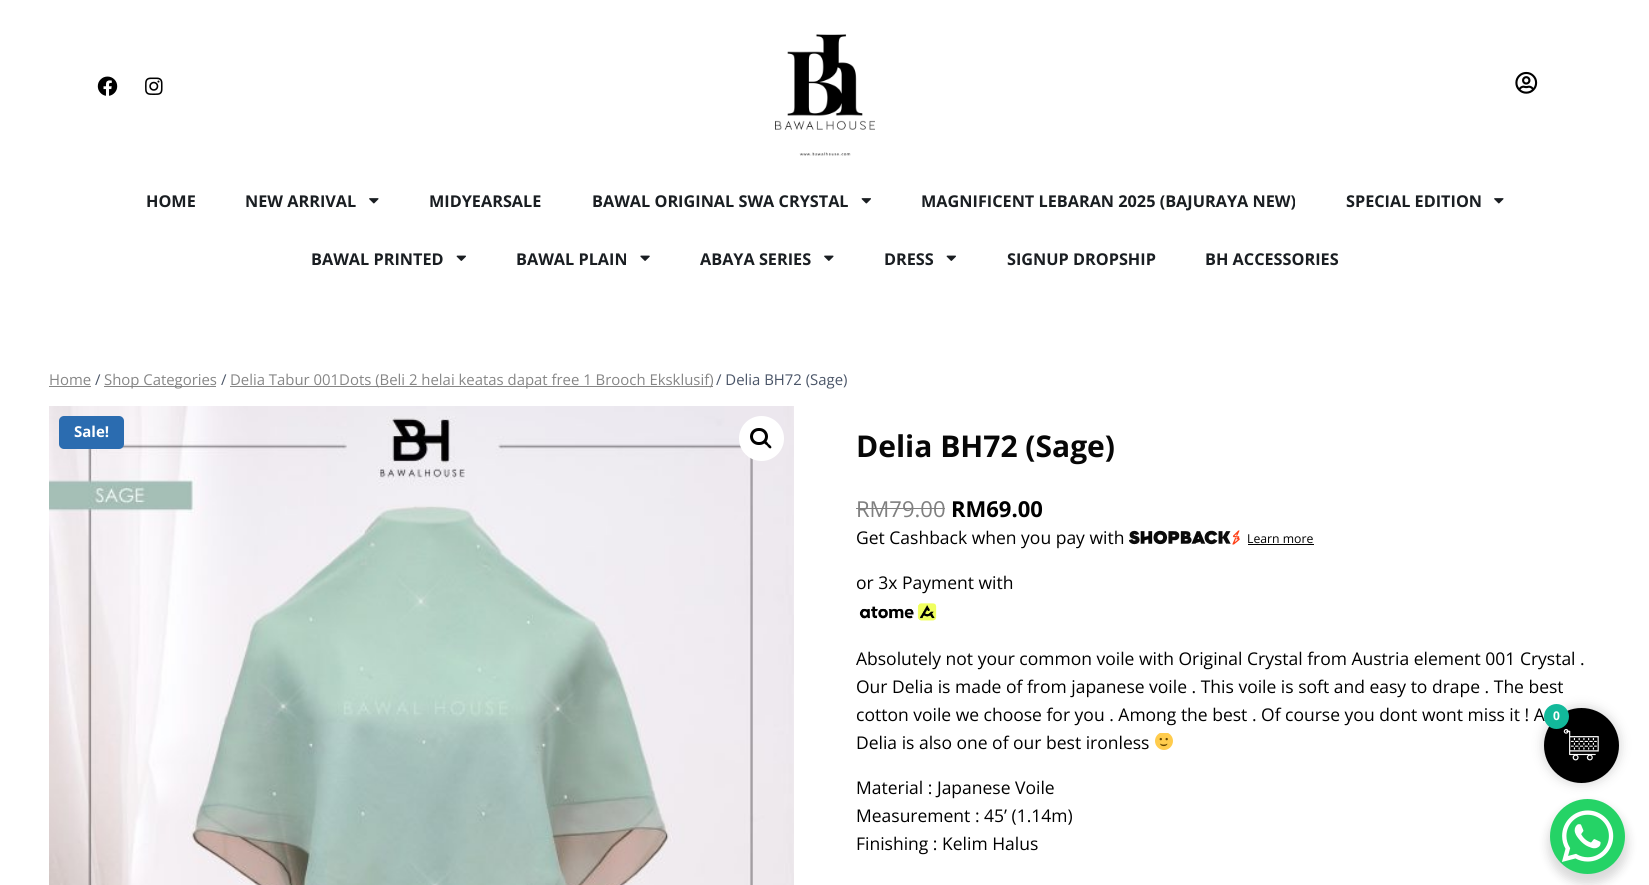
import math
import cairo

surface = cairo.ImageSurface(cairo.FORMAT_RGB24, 1649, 885)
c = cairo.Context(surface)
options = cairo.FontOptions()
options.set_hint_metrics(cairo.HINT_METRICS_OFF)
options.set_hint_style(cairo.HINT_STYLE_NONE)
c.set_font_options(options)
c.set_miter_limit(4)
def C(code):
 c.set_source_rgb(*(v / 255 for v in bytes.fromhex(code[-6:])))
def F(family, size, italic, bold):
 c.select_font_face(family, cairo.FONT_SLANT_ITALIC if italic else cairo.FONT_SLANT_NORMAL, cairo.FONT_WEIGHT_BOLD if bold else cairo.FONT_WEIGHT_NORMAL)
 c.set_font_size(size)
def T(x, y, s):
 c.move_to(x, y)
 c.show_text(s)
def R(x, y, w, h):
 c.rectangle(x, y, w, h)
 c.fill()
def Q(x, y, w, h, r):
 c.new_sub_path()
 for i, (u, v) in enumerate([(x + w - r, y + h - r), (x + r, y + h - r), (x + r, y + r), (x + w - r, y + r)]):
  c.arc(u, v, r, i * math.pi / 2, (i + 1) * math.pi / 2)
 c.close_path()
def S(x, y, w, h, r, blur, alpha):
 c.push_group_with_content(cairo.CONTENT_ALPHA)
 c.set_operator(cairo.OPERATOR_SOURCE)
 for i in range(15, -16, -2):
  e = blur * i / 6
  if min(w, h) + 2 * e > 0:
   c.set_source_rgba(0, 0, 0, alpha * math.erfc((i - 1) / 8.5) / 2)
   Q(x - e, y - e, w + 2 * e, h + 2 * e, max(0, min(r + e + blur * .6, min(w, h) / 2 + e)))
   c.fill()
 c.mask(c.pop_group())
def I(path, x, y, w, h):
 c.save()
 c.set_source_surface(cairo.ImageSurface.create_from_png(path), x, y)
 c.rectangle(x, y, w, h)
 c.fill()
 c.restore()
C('ffffff')
c.paint()
I('1.png',97,76,21,20)
I('2.png',145,77,18,18)
I('3.png',775,34,100,122)
I('4.png',1515,71,23,23)
F('Open Sans',16.25,0,1)
C('1a1e22')
T(146,207,'HOME')
T(245,207,'NEW ARRIVAL')
I('5.png',369,198,10,6)
T(429,207,'MIDYEARSALE')
T(592,207,'BAWAL ORIGINAL SWA CRYSTAL')
I('6.png',861,198,10,6)
T(921,207,'MAGNIFICENT LEBARAN 2025 (BAJURAYA NEW)')
T(1346,207,'SPECIAL EDITION')
I('5.png',1494,198,10,6)
T(311,265,'BAWAL PRINTED')
I('7.png',456,255,10,6)
T(516,265,'BAWAL PLAIN')
I('8.png',640,255,10,6)
T(700,265,'ABAYA SERIES')
I('9.png',824,255,10,6)
T(884,265,'DRESS')
I('7.png',946,255,10,6)
T(1007,265,'SIGNUP DROPSHIP')
T(1205,265,'BH ACCESSORIES')
F('Open Sans',14.9,0,0)
C('868686')
T(49,385,'Home')
R(49,386,42,1)
C('4a5568')
T(95,385,'/')
C('868686')
R(104,386,112,1)
T(104,385,'Shop Categories')
C('4a5568')
T(221,385,'/')
C('868686')
R(230,386,483,1)
T(230,385,'Delia Tabur 001Dots (Beli 2 helai keatas dapat free 1 Brooch Eksklusif)')
C('4a5568')
T(716,385,'/ Delia BH72 (Sage)')
I('10.png',49,406,745,479)
C('ffffff')
c.arc(761.5,438.5,22.5,0,2 * math.pi)
c.fill()
Q(751.5,429.5,15,14,7)
C('000000')
c.set_line_width(3)
c.stroke()
c.new_path()
c.move_to(764,441)
c.curve_to(765.5,439.5,768,443,768.5,444)
c.curve_to(769.5,444.5,772.5,447,771,448)
c.curve_to(770,449.5,767.5,446.5,767,445.5)
c.curve_to(766,445,762.5,442.5,764,441)
c.close_path()
c.fill()
C('2b6cb0')
Q(59,416,65,33,5)
c.fill()
F('Open Sans',15,0,1)
C('ffffff')
T(74,437,'Sale!')
F('Open Sans',30,0,1)
C('070707')
T(856,457,'Delia BH72 (Sage)')
F('Open Sans',22,0,0)
C('808080')
T(856,517,'RM79.00')
R(856,508,89,1)
F('Open Sans',22,0,1)
C('000000')
T(951,517,'RM69.00')
F('Open Sans',17.5,0,0)
T(856,544,'Get Cashback when you pay with')
I('11.png',1129,530,111,15)
F('Open Sans',12.25,0,0)
T(1247,543,'Learn more')
R(1248,544,66,1)
F('Open Sans',17.5,0,0)
T(856,589,'or 3x Payment with')
I('12.png',859,603,78,18)
T(856,665,'Absolutely not your common voile with Original Crystal from Austria element 001 Crystal .')
T(856,693,'Our Delia is made of from japanese voile . This voile is soft and easy to drape . The best')
T(856,721,'cotton voile we choose for you . Among the best . Of course you dont wont miss it ! A')
T(856,749,'Delia is also one of our best ironless')
I('13.png',1155,733,18,17)
T(856,794,'Material : Japanese Voile')
T(856,822,'Measurement : 45’ (1.14m)')
T(856,850,'Finishing : Kelim Halus')
C('000000')
S(1548,804,80,80,40,5,.15)
C('25d366')
c.arc(1587.5,836.5,37.5,0,2 * math.pi)
c.fill()
C('000000')
S(1544,708,75,75,37.5,6,.19)
C('000000')
c.arc(1581.5,745.5,37.5,0,2 * math.pi)
c.fill()
C('12b99a')
c.arc(1556.5,716.5,12.5,0,2 * math.pi)
c.fill()
F('Open Sans',12,0,1)
C('ffffff')
T(1553,720,'0')
I('14.png',1563,729,36,32)
I('15.png',1562,810,52,52)
surface.write_to_png('o.png')
